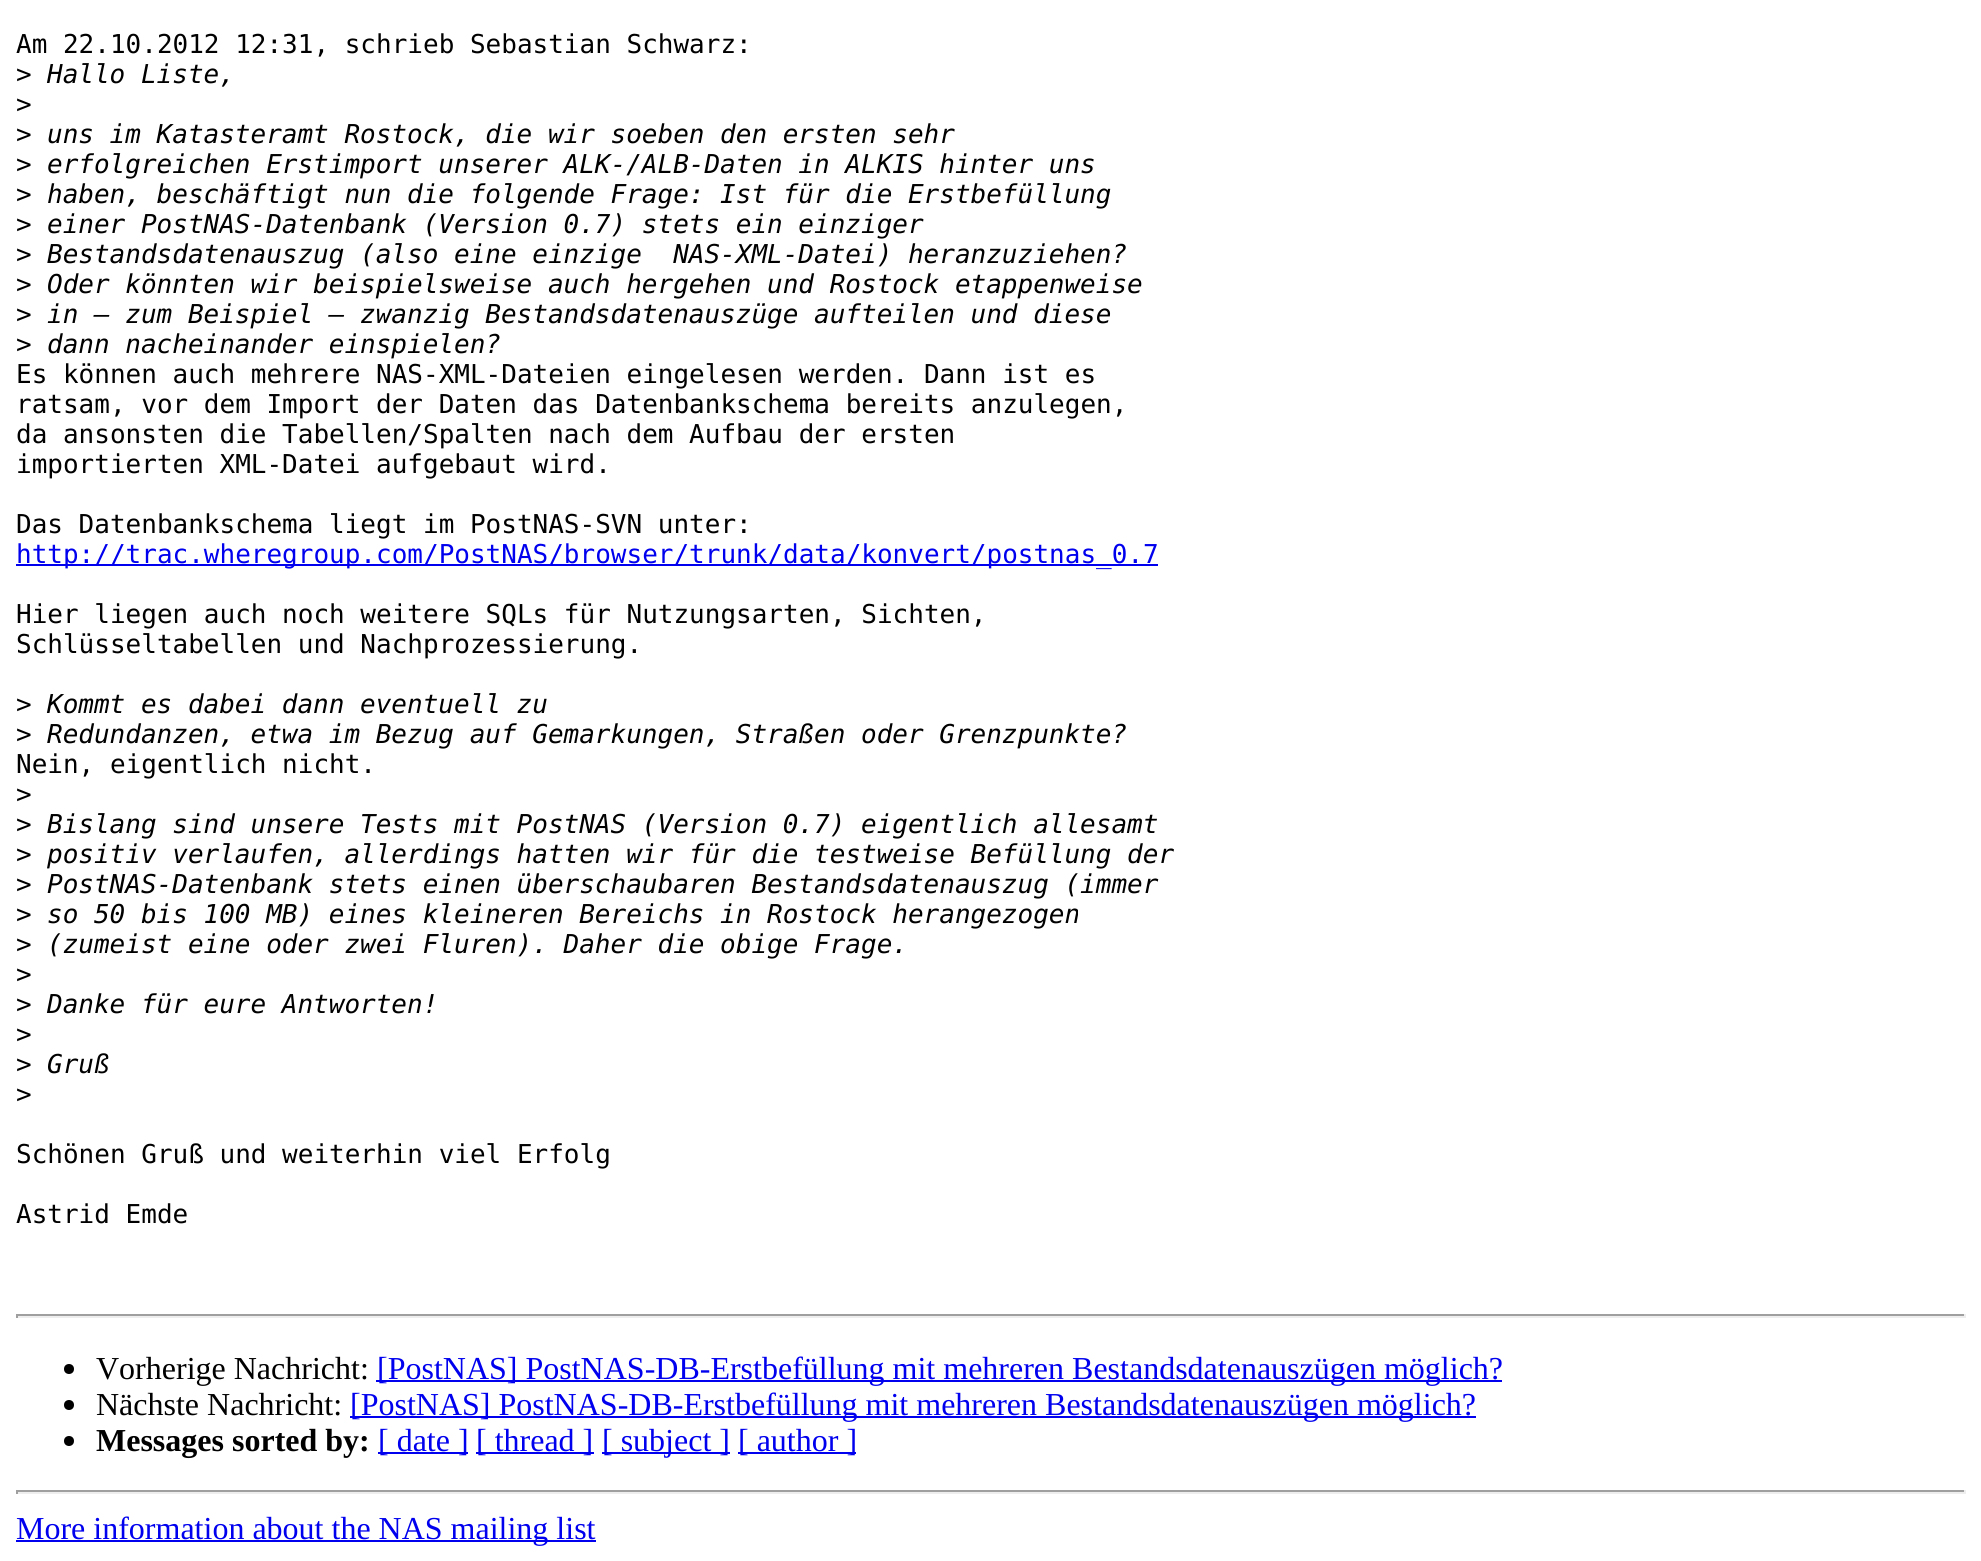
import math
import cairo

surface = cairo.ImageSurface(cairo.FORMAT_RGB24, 1981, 1561)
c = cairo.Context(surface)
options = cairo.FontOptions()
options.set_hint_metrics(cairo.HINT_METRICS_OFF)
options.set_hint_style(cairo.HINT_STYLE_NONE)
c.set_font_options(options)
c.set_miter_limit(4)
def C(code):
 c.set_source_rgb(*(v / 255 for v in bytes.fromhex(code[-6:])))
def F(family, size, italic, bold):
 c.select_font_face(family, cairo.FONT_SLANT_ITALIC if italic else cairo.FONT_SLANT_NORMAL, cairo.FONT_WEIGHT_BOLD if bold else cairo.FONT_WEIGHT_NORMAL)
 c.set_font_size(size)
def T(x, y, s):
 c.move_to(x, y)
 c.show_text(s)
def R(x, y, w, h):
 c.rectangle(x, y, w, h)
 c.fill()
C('ffffff')
c.paint()
F('DejaVu Sans Mono',26,0,0)
C('000000')
T(16,53,'Am 22.10.2012 12:31, schrieb Sebastian Schwarz:')
T(16,83,'>')
F('DejaVu Sans Mono',26,1,0)
T(47,83,'Hallo Liste,')
F('DejaVu Sans Mono',26,0,0)
T(16,113,'>')
T(16,143,'>')
F('DejaVu Sans Mono',26,1,0)
T(47,143,'uns im Katasteramt Rostock, die wir soeben den ersten sehr')
F('DejaVu Sans Mono',26,0,0)
T(16,173,'>')
F('DejaVu Sans Mono',26,1,0)
T(47,173,'erfolgreichen Erstimport unserer ALK-/ALB-Daten in ALKIS hinter uns')
F('DejaVu Sans Mono',26,0,0)
T(16,203,'>')
F('DejaVu Sans Mono',26,1,0)
T(47,203,'haben, beschäftigt nun die folgende Frage: Ist für die Erstbefüllung')
F('DejaVu Sans Mono',26,0,0)
T(16,233,'>')
F('DejaVu Sans Mono',26,1,0)
T(47,233,'einer PostNAS-Datenbank (Version 0.7) stets ein einziger')
F('DejaVu Sans Mono',26,0,0)
T(16,263,'>')
F('DejaVu Sans Mono',26,1,0)
T(47,263,'Bestandsdatenauszug (also eine einzige  NAS-XML-Datei) heranzuziehen?')
F('DejaVu Sans Mono',26,0,0)
T(16,293,'>')
F('DejaVu Sans Mono',26,1,0)
T(47,293,'Oder könnten wir beispielsweise auch hergehen und Rostock etappenweise')
F('DejaVu Sans Mono',26,0,0)
T(16,323,'>')
F('DejaVu Sans Mono',26,1,0)
T(47,323,'in – zum Beispiel – zwanzig Bestandsdatenauszüge aufteilen und diese')
F('DejaVu Sans Mono',26,0,0)
T(16,353,'>')
F('DejaVu Sans Mono',26,1,0)
T(47,353,'dann nacheinander einspielen?')
F('DejaVu Sans Mono',26,0,0)
T(16,383,'Es können auch mehrere NAS-XML-Dateien eingelesen werden. Dann ist es')
T(16,413,'ratsam, vor dem Import der Daten das Datenbankschema bereits anzulegen,')
T(16,443,'da ansonsten die Tabellen/Spalten nach dem Aufbau der ersten')
T(16,473,'importierten XML-Datei aufgebaut wird.')
T(16,533,'Das Datenbankschema liegt im PostNAS-SVN unter:')
C('0000ee')
R(16,564,1142,2)
T(16,563,'http://trac.wheregroup.com/PostNAS/browser/trunk/data/konvert/postnas_0.7')
C('000000')
T(16,623,'Hier liegen auch noch weitere SQLs für Nutzungsarten, Sichten,')
T(16,653,'Schlüsseltabellen und Nachprozessierung.')
T(16,713,'>')
F('DejaVu Sans Mono',26,1,0)
T(47,713,'Kommt es dabei dann eventuell zu')
F('DejaVu Sans Mono',26,0,0)
T(16,743,'>')
F('DejaVu Sans Mono',26,1,0)
T(47,743,'Redundanzen, etwa im Bezug auf Gemarkungen, Straßen oder Grenzpunkte?')
F('DejaVu Sans Mono',26,0,0)
T(16,773,'Nein, eigentlich nicht.')
T(16,803,'>')
T(16,833,'>')
F('DejaVu Sans Mono',26,1,0)
T(47,833,'Bislang sind unsere Tests mit PostNAS (Version 0.7) eigentlich allesamt')
F('DejaVu Sans Mono',26,0,0)
T(16,863,'>')
F('DejaVu Sans Mono',26,1,0)
T(47,863,'positiv verlaufen, allerdings hatten wir für die testweise Befüllung der')
F('DejaVu Sans Mono',26,0,0)
T(16,893,'>')
F('DejaVu Sans Mono',26,1,0)
T(47,893,'PostNAS-Datenbank stets einen überschaubaren Bestandsdatenauszug (immer')
F('DejaVu Sans Mono',26,0,0)
T(16,923,'>')
F('DejaVu Sans Mono',26,1,0)
T(47,923,'so 50 bis 100 MB) eines kleineren Bereichs in Rostock herangezogen')
F('DejaVu Sans Mono',26,0,0)
T(16,953,'>')
F('DejaVu Sans Mono',26,1,0)
T(47,953,'(zumeist eine oder zwei Fluren). Daher die obige Frage.')
F('DejaVu Sans Mono',26,0,0)
T(16,983,'>')
T(16,1013,'>')
F('DejaVu Sans Mono',26,1,0)
T(47,1013,'Danke für eure Antworten!')
F('DejaVu Sans Mono',26,0,0)
T(16,1043,'>')
T(16,1073,'>')
F('DejaVu Sans Mono',26,1,0)
T(47,1073,'Gruß')
F('DejaVu Sans Mono',26,0,0)
T(16,1103,'>')
T(16,1163,'Schönen Gruß und weiterhin viel Erfolg')
T(16,1223,'Astrid Emde')
C('9f9f9f')
R(16,1314,1950,2)
C('eeeeee')
R(1964,1314,2,4)
R(16,1316,1950,2)
C('9f9f9f')
R(16,1314,2,4)
C('000000')
c.new_path()
c.arc(69,1369,5,0,2 * math.pi)
c.fill()
F('Liberation Serif',32,0,0)
T(96,1379,'Vorherige Nachricht:')
C('0000ee')
R(376,1380,1126,2)
T(377,1379,'[PostNAS] PostNAS-DB-Erstbefüllung mit mehreren Bestandsdatenauszügen möglich?')
C('000000')
c.new_path()
c.arc(69,1405,5,0,2 * math.pi)
c.fill()
T(96,1415,'Nächste Nachricht:')
C('0000ee')
R(350,1416,1126,2)
T(350,1415,'[PostNAS] PostNAS-DB-Erstbefüllung mit mehreren Bestandsdatenauszügen möglich?')
C('000000')
c.new_path()
c.arc(69,1441,5,0,2 * math.pi)
c.fill()
F('Liberation Serif',32,0,1)
T(96,1451,'Messages sorted by:')
C('0000ee')
R(378,1452,90,2)
F('Liberation Serif',32,0,0)
T(378,1451,'[ date ]')
R(476,1452,118,2)
T(476,1451,'[ thread ]')
R(602,1452,128,2)
T(602,1451,'[ subject ]')
R(738,1452,118,2)
T(738,1451,'[ author ]')
C('9f9f9f')
R(16,1490,1950,2)
C('eeeeee')
R(1964,1490,2,4)
R(16,1492,1950,2)
C('9f9f9f')
R(16,1490,2,4)
C('0000ee')
R(16,1540,580,2)
T(16,1539,'More information about the NAS mailing list')
surface.write_to_png('o.png')
